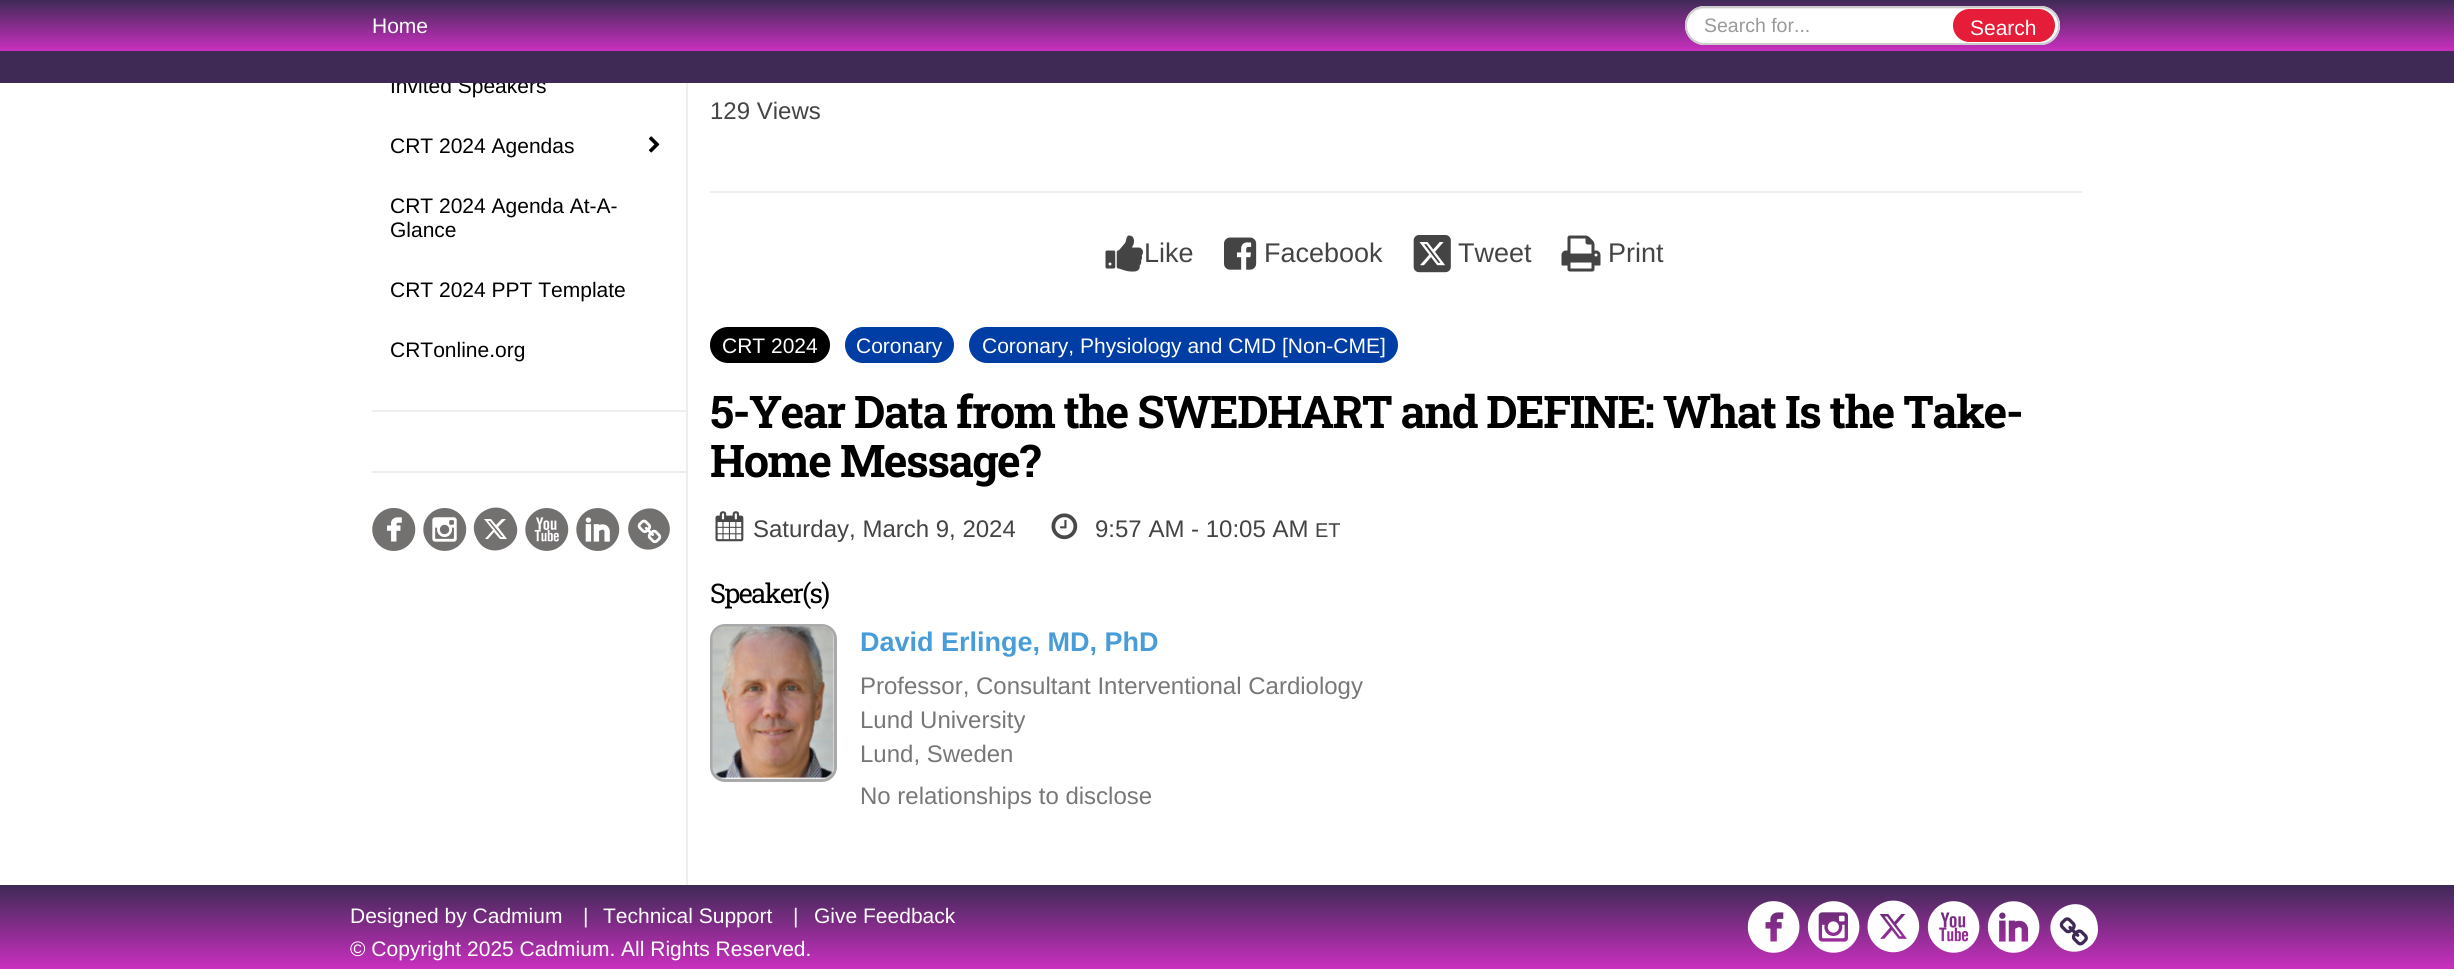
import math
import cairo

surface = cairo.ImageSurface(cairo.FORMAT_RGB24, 2454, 969)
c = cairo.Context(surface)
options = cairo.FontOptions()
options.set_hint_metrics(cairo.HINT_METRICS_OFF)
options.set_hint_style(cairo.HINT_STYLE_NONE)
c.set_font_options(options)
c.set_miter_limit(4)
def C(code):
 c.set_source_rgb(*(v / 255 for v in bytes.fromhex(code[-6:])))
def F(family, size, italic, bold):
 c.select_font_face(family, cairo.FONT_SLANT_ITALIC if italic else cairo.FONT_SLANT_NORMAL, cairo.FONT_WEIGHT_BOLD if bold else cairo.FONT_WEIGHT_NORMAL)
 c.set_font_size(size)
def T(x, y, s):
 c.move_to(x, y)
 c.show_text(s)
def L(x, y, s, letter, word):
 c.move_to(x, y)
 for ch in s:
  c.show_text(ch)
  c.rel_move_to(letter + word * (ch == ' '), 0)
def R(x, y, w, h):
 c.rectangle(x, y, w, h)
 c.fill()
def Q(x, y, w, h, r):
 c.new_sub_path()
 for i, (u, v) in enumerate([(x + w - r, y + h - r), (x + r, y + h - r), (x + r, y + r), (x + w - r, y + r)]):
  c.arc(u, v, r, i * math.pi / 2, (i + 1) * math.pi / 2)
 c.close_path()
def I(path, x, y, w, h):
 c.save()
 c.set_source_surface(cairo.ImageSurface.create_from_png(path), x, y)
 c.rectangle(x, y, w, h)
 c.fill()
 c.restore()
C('ffffff')
c.paint()
gradient = cairo.LinearGradient(1227,0,1227,51)
gradient.add_color_stop_rgba(0,0.247,0.165,0.337,1)
gradient.add_color_stop_rgba(1,0.788,0.184,0.749,1)
c.set_source(gradient)
R(0,0,2454,51)
F('Liberation Sans',21,0,0)
C('ffffff')
T(372,33,'Home')
Q(1685,6,375,39,19.5)
c.fill()
C('ececec')
c.new_path()
c.move_to(1704,9)
c.line_to(2040,9)
c.curve_to(2052,9,2058,18,2058,26)
c.curve_to(2058,16,2050,8,2040,8)
c.line_to(1704,8)
c.curve_to(1694,8,1686,17,1686,27)
c.curve_to(1686,17,1694,9,1704,9)
c.close_path()
c.fill()
Q(1686,7,373,37,18.5)
C('cccccc')
c.stroke()
F('Liberation Sans',19.5,0,0)
C('999999')
T(1704,32,'Search for...')
C('e51d38')
Q(1953,9,102,33,16.5)
c.fill()
F('Liberation Sans',21,0,0)
C('ffffff')
T(1970,35,'Search')
C('000000')
T(390,93,'Invited Speakers')
C('3f2a56')
R(0,51,2454,32)
C('eeeeee')
R(686,83,2,802)
C('000000')
T(390,153,'CRT 2024 Agendas')
I('1.png',648,136,12,17)
T(390,213,'CRT 2024 Agenda At-A-')
T(390,237,'Glance')
T(390,297,'CRT 2024 PPT Template')
T(390,357,'CRTonline.org')
C('eeeeee')
R(372,410,314,2)
R(372,471,314,2)
I('2.png',372,508,44,43)
I('3.png',423,508,44,43)
C('737070')
c.new_path()
c.move_to(488,521)
c.line_to(490,521)
c.line_to(503,537)
c.line_to(501,537)
c.close_path()
c.move_to(515,521)
c.curve_to(527,546,487,564,476,537)
c.curve_to(464,512,504,494,515,521)
c.close_path()
c.move_to(500,539)
c.line_to(507,539)
c.line_to(498,527)
c.line_to(506,519)
c.line_to(502,519)
c.line_to(496,525)
c.line_to(491,519)
c.line_to(484,519)
c.line_to(493,530)
c.line_to(485,539)
c.line_to(488,539)
c.line_to(494,532)
c.close_path()
c.fill()
I('4.png',525,508,44,43)
I('5.png',576,508,44,43)
c.new_path()
c.move_to(667,519)
c.curve_to(680,542,645,563,631,539)
c.curve_to(618,516,653,495,667,519)
c.close_path()
c.fill()
I('6.png',637,519,25,25)
F('Liberation Sans',24,0,0)
C('444444')
T(710,119,'129 Views')
C('eeeeee')
R(710,191,1372,2)
I('7.png',1105,235,38,37)
F('Liberation Sans',27,0,0)
C('444444')
T(1144,262,'Like')
I('8.png',1224,237,33,33)
T(1264,262,'Facebook')
I('9.png',1413,235,38,38)
T(1458,262,'Tweet')
I('10.png',1561,235,40,37)
T(1608,262,'Print')
C('000000')
Q(710,327,120,36,18)
c.fill()
F('Liberation Sans',21,0,0)
C('ffffff')
T(722,353,'CRT 2024')
C('003da5')
Q(845,327,109,36,18)
c.fill()
C('ffffff')
T(856,353,'Coronary')
C('003da5')
Q(969,327,429,36,18)
c.fill()
C('ffffff')
T(982,353,'Coronary, Physiology and CMD [Non-CME]')
F('Roboto Slab',45,0,1)
C('000000')
L(710,428,'5-Year Data from the SWEDHART and DEFINE: What Is the Take-',-1.5,0)
L(710,477,'Home Message?',-1.5,0)
I('11.png',715,511,29,31)
F('Liberation Sans',24,0,0)
C('444444')
T(753,537,'Saturday, March 9, 2024')
I('12.png',1051,513,27,27)
T(1095,537,'9:57 AM - 10:05 AM')
F('Liberation Sans',20,0,0)
T(1315,537,'ET')
F('Roboto Slab',27,0,0)
C('000000')
L(710,603,'Speaker(s)',-1.5,0)
Q(711.5,625.5,124,155,13.5)
C('a9a9a9')
c.set_line_width(3)
c.stroke()
I('13.png',712,626,122,153)
F('Liberation Sans',27,0,1)
C('489cd8')
T(860,651,'David Erlinge, MD, PhD')
F('Liberation Sans',24,0,0)
C('777777')
T(860,694,'Professor, Consultant Interventional Cardiology')
T(860,728,'Lund University')
T(860,762,'Lund, Sweden')
T(860,804,'No relationships to disclose')
gradient = cairo.LinearGradient(1227,885,1227,969)
gradient.add_color_stop_rgba(0,0.247,0.165,0.337,1)
gradient.add_color_stop_rgba(1,0.788,0.184,0.749,1)
c.set_source(gradient)
R(0,885,2454,84)
F('Liberation Sans',21,0,0)
C('ffffff')
T(350,923,'Designed by Cadmium')
T(583,923,'|')
T(603,923,'Technical Support')
T(793,923,'|')
T(814,923,'Give Feedback')
T(350,956,'© Copyright 2025 Cadmium. All Rights Reserved.')
I('14.png',1747,901,53,52)
I('15.png',1807,901,53,52)
I('16.png',1867,900,53,53)
I('17.png',1927,901,53,52)
I('18.png',1987,901,53,52)
c.new_path()
c.move_to(2095,916)
c.curve_to(2097,920,2098,925,2098,930)
c.curve_to(2097,953,2065,960,2054,940)
c.curve_to(2038,913,2079,889,2095,916)
c.close_path()
c.fill()
I('19.png',2059,917,29,29)
surface.write_to_png('o.png')
